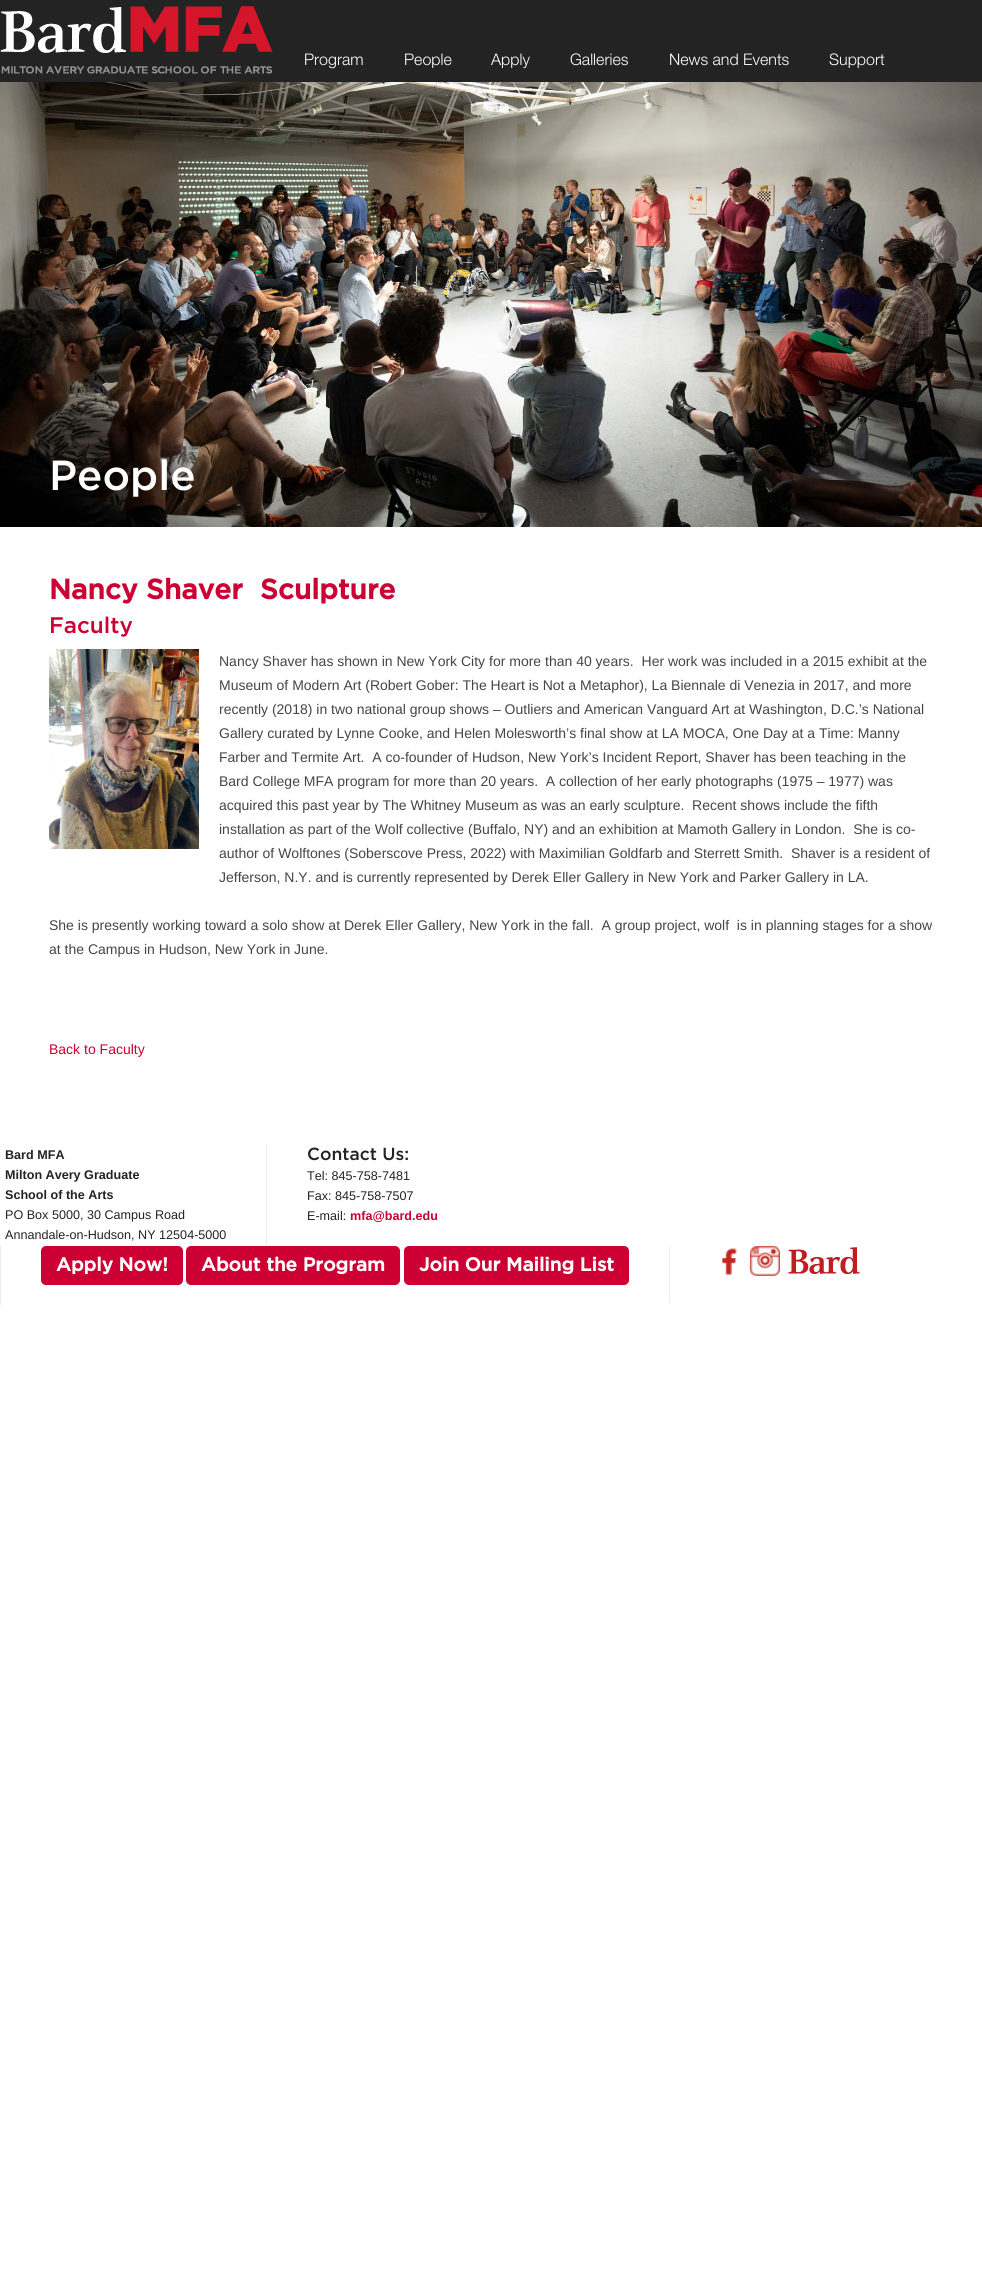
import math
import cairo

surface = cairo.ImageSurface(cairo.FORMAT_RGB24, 982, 2296)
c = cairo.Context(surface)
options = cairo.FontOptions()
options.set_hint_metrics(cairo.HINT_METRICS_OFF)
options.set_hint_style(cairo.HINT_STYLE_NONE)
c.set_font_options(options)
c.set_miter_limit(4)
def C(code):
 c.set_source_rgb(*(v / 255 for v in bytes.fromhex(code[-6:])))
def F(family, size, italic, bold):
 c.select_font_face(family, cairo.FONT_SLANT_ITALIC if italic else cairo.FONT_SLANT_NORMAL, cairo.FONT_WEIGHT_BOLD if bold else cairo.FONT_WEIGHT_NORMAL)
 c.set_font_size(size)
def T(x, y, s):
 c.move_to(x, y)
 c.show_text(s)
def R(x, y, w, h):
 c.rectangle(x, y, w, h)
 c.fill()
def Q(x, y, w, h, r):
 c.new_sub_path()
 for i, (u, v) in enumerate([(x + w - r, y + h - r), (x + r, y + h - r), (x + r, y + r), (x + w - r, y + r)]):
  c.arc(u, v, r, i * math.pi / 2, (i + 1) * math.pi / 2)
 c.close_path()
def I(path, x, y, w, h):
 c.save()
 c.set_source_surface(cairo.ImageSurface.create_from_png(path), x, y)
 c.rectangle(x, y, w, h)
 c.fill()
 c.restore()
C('ffffff')
c.paint()
C('232323')
R(0,0,982,82)
I('1.png',0,6,273,68)
F('Helvetica Neue Light',16,0,0)
C('ffffff')
T(304,65,'Program')
T(404,65,'People')
T(491,65,'Apply')
T(570,65,'Galleries')
T(669,65,'News and Events')
T(829,65,'Support')
I('2.png',0,82,982,445)
F('Gotham Medium',42,0,0)
T(49,490,'People')
F('Gotham',28,0,1)
C('cc0033')
T(49,599,'Nancy Shaver')
T(260,599,'Sculpture')
F('Gotham Medium',22.5,0,0)
T(49,633,'Faculty')
I('3.png',49,649,150,200)
F('Liberation Sans',14,0,0)
C('454545')
T(219,666,'Nancy Shaver has shown in New York City for more than 40 years.  Her work was included in a 2015 exhibit at the')
T(219,690,'Museum of Modern Art (Robert Gober: The Heart is Not a Metaphor), La Biennale di Venezia in 2017, and more')
T(219,714,'recently (2018) in two national group shows – Outliers and American Vanguard Art at Washington, D.C.’s National')
T(219,738,'Gallery curated by Lynne Cooke, and Helen Molesworth’s final show at LA MOCA, One Day at a Time: Manny')
T(219,762,'Farber and Termite Art.  A co-founder of Hudson, New York’s Incident Report, Shaver has been teaching in the')
T(219,786,'Bard College MFA program for more than 20 years.  A collection of her early photographs (1975 – 1977) was')
T(219,810,'acquired this past year by The Whitney Museum as was an early sculpture.  Recent shows include the fifth')
T(219,834,'installation as part of the Wolf collective (Buffalo, NY) and an exhibition at Mamoth Gallery in London.  She is co-')
T(219,858,'author of Wolftones (Soberscove Press, 2022) with Maximilian Goldfarb and Sterrett Smith.  Shaver is a resident of')
T(219,882,'Jefferson, N.Y. and is currently represented by Derek Eller Gallery in New York and Parker Gallery in LA.')
T(49,930,'She is presently working toward a solo show at Derek Eller Gallery, New York in the fall.  A group project, wolf  is in planning stages for a show')
T(49,954,'at the Campus in Hudson, New York in June.')
C('cc0033')
T(49,1054,'Back to Faculty')
F('Liberation Sans',12.6,0,1)
C('232323')
T(5,1159,'Bard MFA')
T(5,1179,'Milton Avery Graduate')
T(5,1199,'School of the Arts')
F('Liberation Sans',12.6,0,0)
T(5,1219,'PO Box 5000, 30 Campus Road')
T(5,1239,'Annandale-on-Hudson, NY 12504-5000')
C('ededed')
R(266,1145,1,101)
F('Gotham Medium',17.5,0,0)
C('232323')
T(307,1160,'Contact Us:')
F('Liberation Sans',12.6,0,0)
T(307,1180,'Tel: 845-758-7481')
T(307,1200,'Fax: 845-758-7507')
T(307,1220,'E-mail:')
F('Liberation Sans',12.6,0,1)
C('cc0033')
T(350,1220,'mfa@bard.edu')
C('ededed')
R(0,1246,1,59)
C('cc0033')
Q(41,1246,142,39,5)
c.fill()
F('Gotham',18.9,0,1)
C('ffffff')
T(56,1271,'Apply Now!')
C('cc0033')
Q(186,1246,214,39,5)
c.fill()
C('ffffff')
T(201,1271,'About the Program')
C('cc0033')
Q(404,1246,225,39,5)
c.fill()
C('ffffff')
T(419,1271,'Join Our Mailing List')
C('ededed')
R(669,1246,1,56)
I('4.png',722,1248,15,27)
I('5.png',750,1246,30,30)
I('6.png',788,1247,72,27)
surface.write_to_png('o.png')
